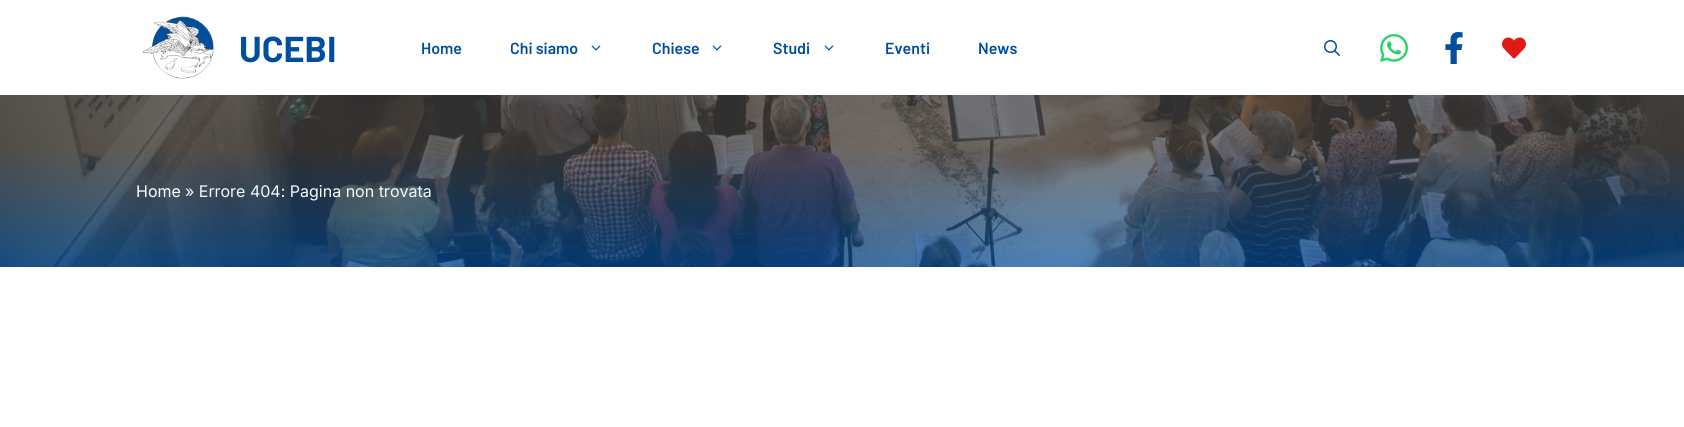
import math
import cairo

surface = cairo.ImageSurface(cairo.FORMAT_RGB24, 1684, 427)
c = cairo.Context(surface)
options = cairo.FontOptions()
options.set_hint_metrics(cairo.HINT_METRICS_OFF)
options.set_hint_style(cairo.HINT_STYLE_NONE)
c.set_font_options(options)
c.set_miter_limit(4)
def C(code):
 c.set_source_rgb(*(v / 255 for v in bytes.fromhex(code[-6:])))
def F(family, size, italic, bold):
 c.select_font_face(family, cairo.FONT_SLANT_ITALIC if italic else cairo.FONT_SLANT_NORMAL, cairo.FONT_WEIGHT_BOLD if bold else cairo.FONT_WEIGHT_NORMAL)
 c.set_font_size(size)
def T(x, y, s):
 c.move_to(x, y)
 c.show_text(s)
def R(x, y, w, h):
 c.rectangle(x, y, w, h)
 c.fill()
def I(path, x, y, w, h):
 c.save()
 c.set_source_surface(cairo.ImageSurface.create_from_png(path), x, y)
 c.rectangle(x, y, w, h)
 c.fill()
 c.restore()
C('ffffff')
c.paint()
I('1.png',142,16,72,63)
F('Barlow',36,0,1)
C('004f9f')
T(239,62,'UCEBI')
F('Barlow SemiBold',16,0,0)
T(421,54,'Home')
T(510,54,'Chi siamo')
I('2.png',591,45,10,6)
T(652,54,'Chiese')
I('2.png',712,45,10,6)
T(773,54,'Studi')
I('2.png',824,45,10,6)
T(885,54,'Eventi')
T(978,54,'News')
I('3.png',1324,40,16,16)
I('4.png',1380,34,28,28)
I('5.png',1445,32,18,32)
I('6.png',1502,37,24,22)
gradient = cairo.LinearGradient(842,267,842,95)
gradient.add_color_stop_rgba(0,0,0.31,0.624,1)
gradient.add_color_stop_rgba(.7,0.259,0.259,0.259,1)
c.set_source(gradient)
R(0,95,1684,172)
I('7.png',0,95,1684,172)
F('Inter',16,0,0)
C('ffffff')
T(136,197,'Home')
C('f5f9fc')
T(185,197,'» Errore 404: Pagina non trovata')
surface.write_to_png('o.png')
